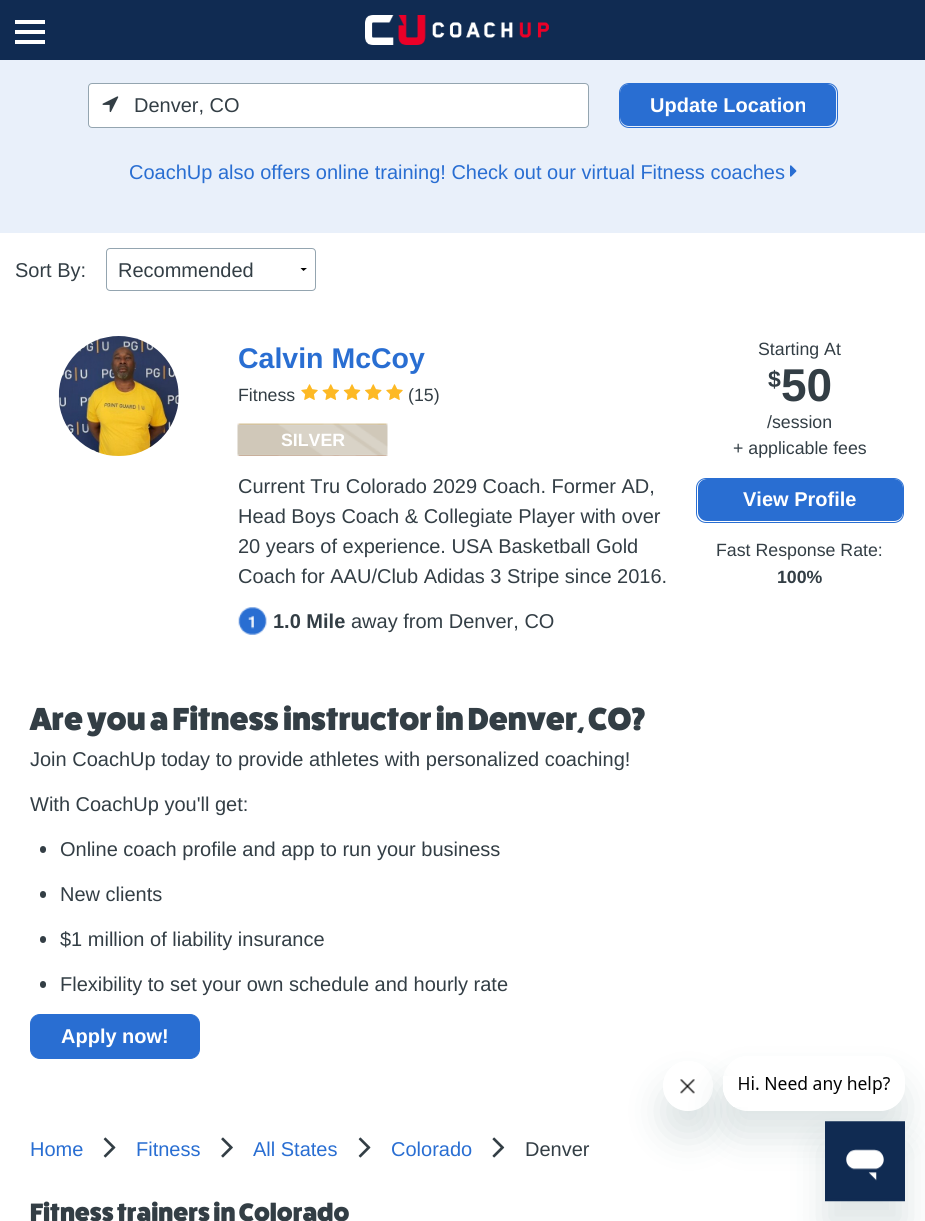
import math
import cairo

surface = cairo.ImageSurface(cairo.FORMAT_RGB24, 925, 1221)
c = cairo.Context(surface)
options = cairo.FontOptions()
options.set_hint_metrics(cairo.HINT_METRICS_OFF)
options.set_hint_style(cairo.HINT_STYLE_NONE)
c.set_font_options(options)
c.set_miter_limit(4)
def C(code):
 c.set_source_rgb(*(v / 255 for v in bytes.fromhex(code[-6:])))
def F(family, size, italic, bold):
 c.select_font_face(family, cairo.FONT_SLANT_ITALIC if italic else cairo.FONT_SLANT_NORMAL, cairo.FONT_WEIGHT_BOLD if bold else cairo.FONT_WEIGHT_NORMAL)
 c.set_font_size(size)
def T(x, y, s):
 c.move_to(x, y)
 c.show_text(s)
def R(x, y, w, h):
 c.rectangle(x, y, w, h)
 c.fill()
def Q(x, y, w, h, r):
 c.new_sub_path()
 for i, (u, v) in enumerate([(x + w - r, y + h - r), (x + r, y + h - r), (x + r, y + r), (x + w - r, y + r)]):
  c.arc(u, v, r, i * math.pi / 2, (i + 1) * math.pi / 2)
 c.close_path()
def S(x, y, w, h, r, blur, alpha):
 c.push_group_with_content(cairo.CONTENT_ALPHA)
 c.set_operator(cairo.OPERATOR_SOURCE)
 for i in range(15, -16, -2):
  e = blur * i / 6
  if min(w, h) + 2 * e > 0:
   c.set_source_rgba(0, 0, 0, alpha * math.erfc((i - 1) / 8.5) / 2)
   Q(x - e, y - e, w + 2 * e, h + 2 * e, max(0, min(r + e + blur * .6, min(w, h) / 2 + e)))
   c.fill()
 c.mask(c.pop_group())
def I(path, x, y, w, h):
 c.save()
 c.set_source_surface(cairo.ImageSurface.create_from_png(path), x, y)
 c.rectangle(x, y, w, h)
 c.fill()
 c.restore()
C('ffffff')
c.paint()
C('102b52')
R(0,0,925,60)
C('ffffff')
R(15,30,30,4)
R(15,20,30,4)
R(15,40,30,4)
I('1.png',365,15,184,30)
C('e9f0fa')
R(0,60,925,173)
C('ffffff')
Q(88.5,83.5,500,44,3.5)
c.fill_preserve()
C('94a5b0')
c.set_line_width(1)
c.stroke()
I('2.png',102,96,17,17)
F('Liberation Sans',20,0,0)
C('333e45')
T(134,112,'Denver, CO')
C('296ed2')
Q(620,84,216,42,9)
c.fill()
Q(619.5,83.5,218,44,9.5)
c.stroke()
F('Liberation Sans',20,0,1)
C('ffffff')
T(650,112,'Update Location')
F('Liberation Sans',20,0,0)
C('296ed2')
T(129,179,'CoachUp also offers online training! Check out our virtual Fitness coaches')
I('3.png',790,165,7,12)
C('333e45')
T(15,277,'Sort By:')
c.save()
c.rectangle(300,268,8,4)
c.clip()
C('000000')
c.new_path()
c.move_to(307.5,267.5)
c.line_to(303.5,271)
c.line_to(300,267.5)
c.close_path()
c.fill()
c.restore()
Q(106.5,248.5,209,42,3.5)
C('94a5b0')
c.stroke()
C('333e45')
T(118,277,'Recommended')
I('4.png',58,336,121,120)
F('Liberation Sans',28.5,0,1)
C('296ed2')
T(238,368,'Calvin McCoy')
F('Liberation Sans',17.75,0,0)
C('333e45')
T(238,401,'Fitness')
I('5.png',301,384,17,16)
I('6.png',322,384,17,16)
I('7.png',343,384,18,16)
I('8.png',365,384,17,16)
I('5.png',386,384,17,16)
T(408,401,'(15)')
I('9.png',237,423,151,33)
F('Liberation Sans',17.75,0,1)
C('ffffff')
T(281,446,'SILVER')
F('Liberation Sans',20,0,0)
C('333e45')
T(238,493,'Current Tru Colorado 2029 Coach. Former AD,')
T(238,523,'Head Boys Coach & Collegiate Player with over')
T(238,553,'20 years of experience. USA Basketball Gold')
T(238,583,'Coach for AAU/Club Adidas 3 Stripe since 2016.')
I('10.png',238,607,29,28)
F('Liberation Sans',20,0,1)
T(273,628,'1.0 Mile')
F('Liberation Sans',20,0,0)
T(351,628,'away from Denver, CO')
F('Liberation Sans',17.75,0,0)
T(758,355,'Starting At')
F('Liberation Sans',23,0,1)
T(768,387,'$')
F('Liberation Sans',46,0,1)
T(781,401,'50')
F('Liberation Sans',17.75,0,0)
T(767,428,'/session')
T(733,454,'+ applicable fees')
C('296ed2')
Q(698,479,205,42,9)
c.fill()
Q(696.5,478.5,207,44,9.5)
c.stroke()
F('Liberation Sans',20,0,1)
C('ffffff')
T(743,506,'View Profile')
F('Liberation Sans',17.75,0,0)
C('333e45')
T(716,556,'Fast Response Rate:')
F('Liberation Sans',17.75,0,1)
T(777,583,'100%')
F('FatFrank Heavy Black',32,0,0)
T(30,730,'Are you a Fitness instructor in Denver, CO?')
F('Liberation Sans',20,0,0)
T(30,766,'Join CoachUp today to provide athletes with personalized coaching!')
T(30,811,'With CoachUp you\'ll get:')
Q(40,846,6,7,3)
c.fill()
T(60,856,'Online coach profile and app to run your business')
Q(40,891,6,7,3)
c.fill()
T(60,901,'New clients')
Q(40,936,6,7,3)
c.fill()
T(60,946,'$1 million of liability insurance')
Q(40,981,6,7,3)
c.fill()
T(60,991,'Flexibility to set your own schedule and hourly rate')
C('296ed2')
Q(30.5,1014.5,169,44,9.5)
c.fill_preserve()
c.stroke()
F('Liberation Sans',20,0,1)
C('ffffff')
T(61,1043,'Apply now!')
F('Liberation Sans',20,0,0)
C('296ed2')
T(30,1156,'Home')
I('11.png',103,1137,13,21)
T(136,1156,'Fitness')
I('12.png',221,1137,12,21)
T(253,1156,'All States')
I('11.png',358,1137,13,21)
T(391,1156,'Colorado')
I('13.png',492,1137,13,21)
C('333e45')
T(525,1156,'Denver')
F('FatFrank Heavy Black',25.25,0,0)
T(30,1221,'Fitness trainers in Colorado')
c.save()
c.set_fill_rule(cairo.FILL_RULE_EVEN_ODD)
c.new_path()
c.move_to(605,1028)
c.line_to(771,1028)
c.line_to(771,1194)
c.line_to(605,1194)
c.close_path()
c.move_to(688,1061)
c.curve_to(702,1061,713,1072,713,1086)
c.curve_to(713,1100,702,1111,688,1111)
c.curve_to(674,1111,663,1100,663,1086)
c.curve_to(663,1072,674,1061,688,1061)
c.close_path()
c.clip()
C('17494d')
S(663,1086,50,50,25,19,.15)
c.restore()
I('15.png',680,1079,15,15)
c.save()
c.set_fill_rule(cairo.FILL_RULE_EVEN_ODD)
c.new_path()
c.move_to(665,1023)
c.line_to(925,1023)
c.line_to(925,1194)
c.line_to(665,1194)
c.close_path()
c.move_to(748,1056)
c.line_to(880,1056)
c.curve_to(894,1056,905,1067,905,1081)
c.line_to(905,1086)
c.curve_to(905,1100,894,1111,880,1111)
c.line_to(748,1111)
c.curve_to(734,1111,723,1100,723,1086)
c.line_to(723,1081)
c.curve_to(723,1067,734,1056,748,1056)
c.close_path()
c.clip()
C('17494d')
S(723,1081,182,55,25,19,.15)
c.restore()
I('14.png',723,1076,167,31)
C('17494d')
S(825,1146,80,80,0,19,.15)
I('16.png',825,1121,80,81)
surface.write_to_png('o.png')
